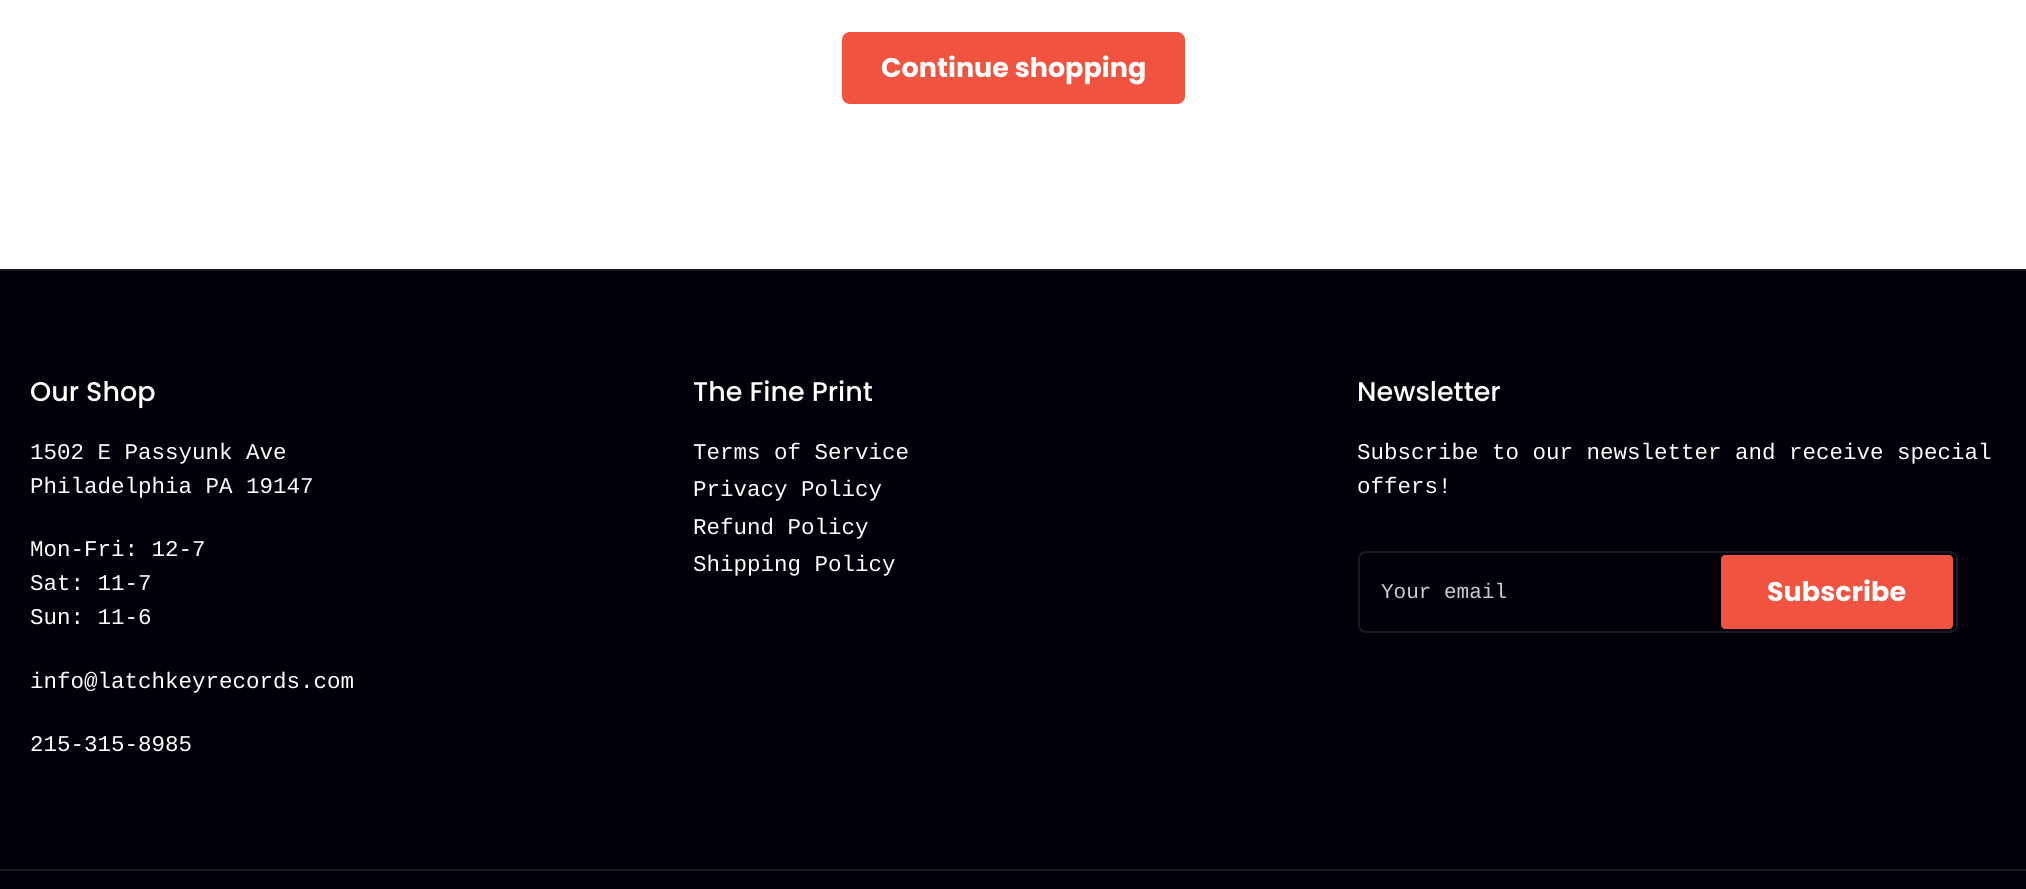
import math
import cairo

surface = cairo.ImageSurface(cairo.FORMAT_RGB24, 2026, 889)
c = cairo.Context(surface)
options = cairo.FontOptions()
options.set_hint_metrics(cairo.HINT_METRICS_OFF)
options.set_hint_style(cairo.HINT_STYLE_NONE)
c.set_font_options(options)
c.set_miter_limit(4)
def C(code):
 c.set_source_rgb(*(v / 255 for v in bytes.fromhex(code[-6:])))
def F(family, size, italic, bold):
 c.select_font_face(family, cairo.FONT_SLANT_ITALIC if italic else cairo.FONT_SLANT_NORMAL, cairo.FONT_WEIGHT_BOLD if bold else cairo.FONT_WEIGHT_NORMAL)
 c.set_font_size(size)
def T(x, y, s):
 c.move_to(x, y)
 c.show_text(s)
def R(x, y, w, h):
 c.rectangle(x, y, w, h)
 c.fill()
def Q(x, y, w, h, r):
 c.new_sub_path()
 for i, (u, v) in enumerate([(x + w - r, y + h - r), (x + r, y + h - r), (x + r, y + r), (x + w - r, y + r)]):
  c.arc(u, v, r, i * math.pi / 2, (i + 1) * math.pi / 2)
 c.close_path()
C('ffffff')
c.paint()
C('f0533f')
Q(843,33,341,70,7)
c.fill_preserve()
c.stroke()
F('Poppins',27,0,1)
C('ffffff')
T(881,77,'Continue shopping')
C('00000a')
R(0,271,2026,598)
C('1a1a23')
R(0,269,2026,2)
F('Poppins Medium',27,0,0)
C('ffffff')
T(30,401,'Our Shop')
F('Liberation Mono',22.5,0,0)
T(30,459,'1502 E Passyunk Ave')
T(30,493,'Philadelphia PA 19147')
T(30,556,'Mon-Fri: 12-7')
T(30,590,'Sat: 11-7')
T(30,624,'Sun: 11-6')
T(30,688,'info@latchkeyrecords.com')
T(30,751,'215-315-8985')
F('Poppins Medium',27,0,0)
T(693,401,'The Fine Print')
F('Liberation Mono',22.5,0,0)
T(693,459,'Terms of Service')
T(693,496,'Privacy Policy')
T(693,534,'Refund Policy')
T(693,571,'Shipping Policy')
F('Poppins Medium',27,0,0)
T(1357,401,'Newsletter')
F('Liberation Mono',22.5,0,0)
T(1357,459,'Subscribe to our newsletter and receive special')
T(1357,493,'offers!')
Q(1359,552,598,80,7)
C('1a1a23')
c.stroke()
F('Liberation Mono',21,0,0)
C('ccccce')
T(1381,598,'Your email')
C('f0533f')
Q(1722,556,230,72,3)
c.fill_preserve()
c.stroke()
F('Poppins',27,0,1)
C('ffffff')
T(1767,601,'Subscribe')
C('00000a')
R(0,871,2026,18)
C('1a1a23')
R(0,869,2026,2)
surface.write_to_png('o.png')
